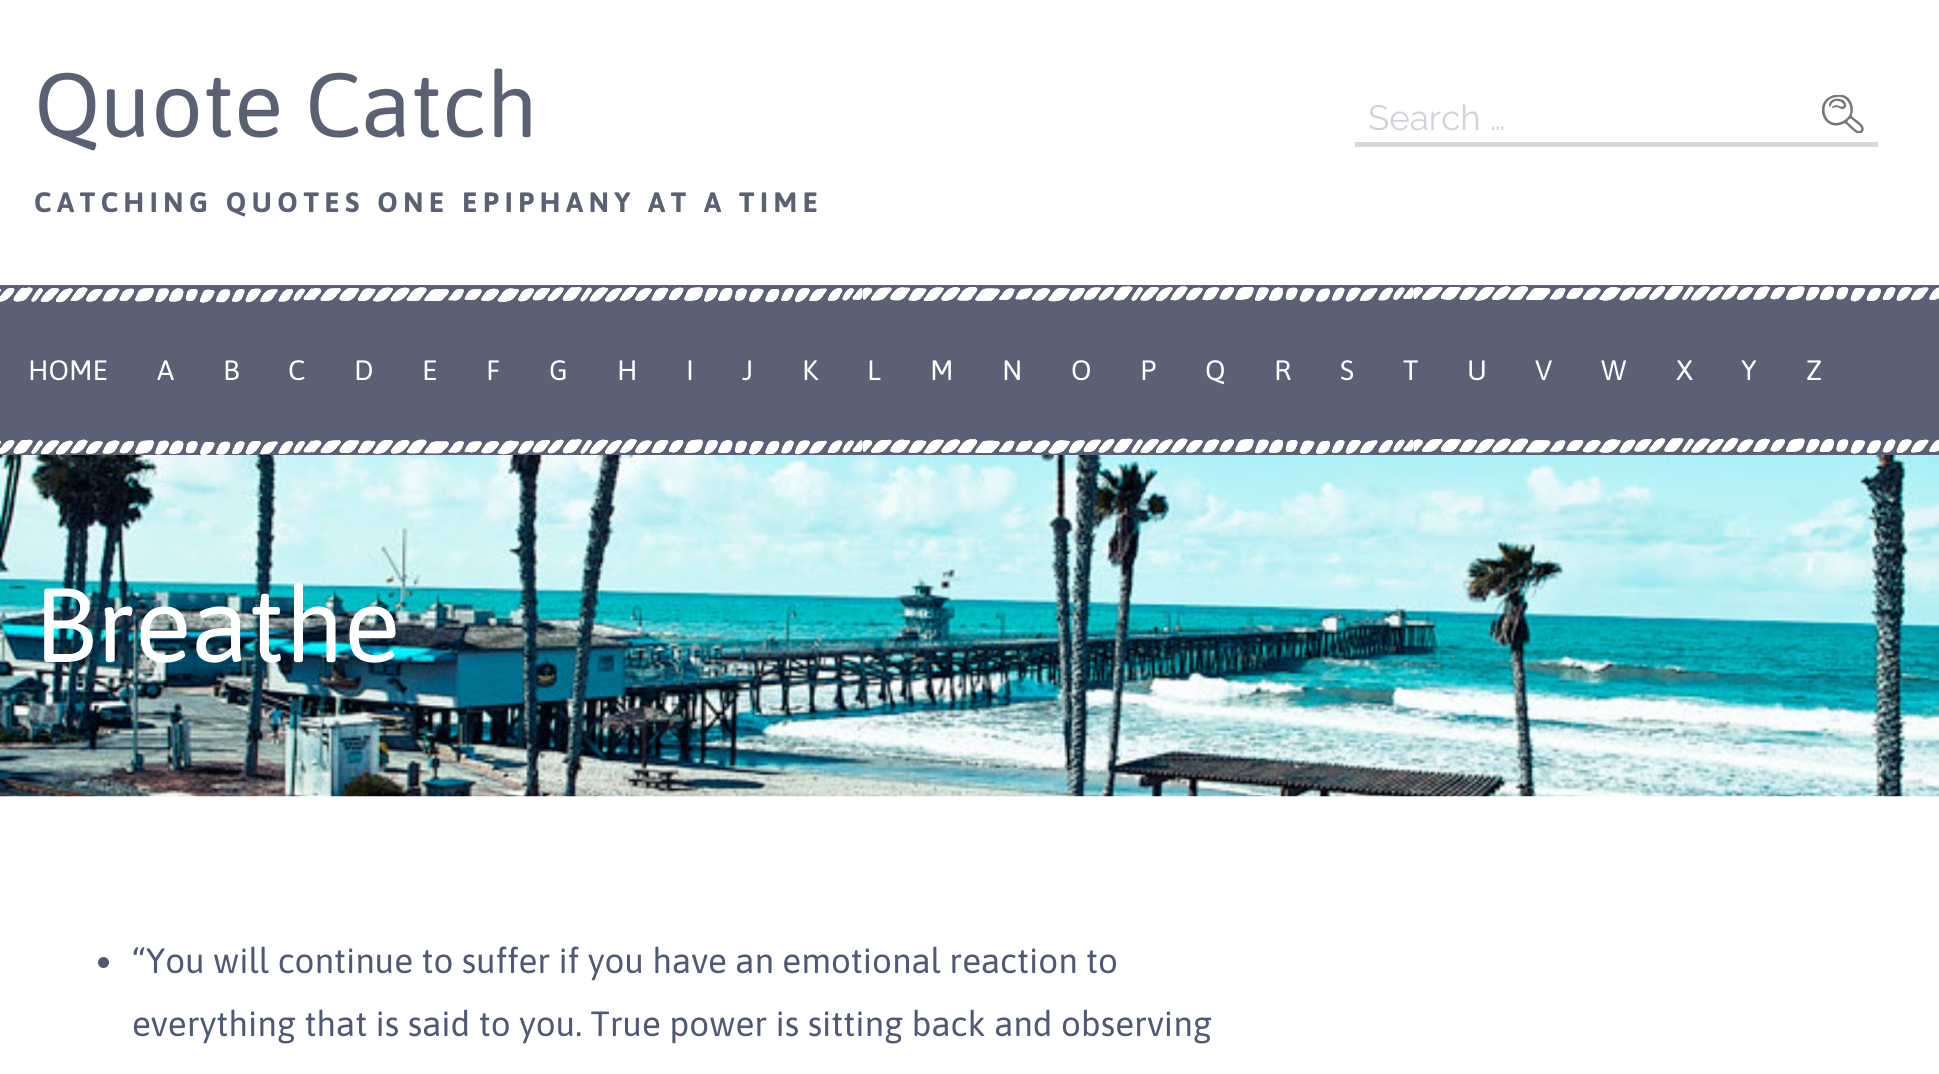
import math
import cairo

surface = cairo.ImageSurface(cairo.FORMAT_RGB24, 1939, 1074)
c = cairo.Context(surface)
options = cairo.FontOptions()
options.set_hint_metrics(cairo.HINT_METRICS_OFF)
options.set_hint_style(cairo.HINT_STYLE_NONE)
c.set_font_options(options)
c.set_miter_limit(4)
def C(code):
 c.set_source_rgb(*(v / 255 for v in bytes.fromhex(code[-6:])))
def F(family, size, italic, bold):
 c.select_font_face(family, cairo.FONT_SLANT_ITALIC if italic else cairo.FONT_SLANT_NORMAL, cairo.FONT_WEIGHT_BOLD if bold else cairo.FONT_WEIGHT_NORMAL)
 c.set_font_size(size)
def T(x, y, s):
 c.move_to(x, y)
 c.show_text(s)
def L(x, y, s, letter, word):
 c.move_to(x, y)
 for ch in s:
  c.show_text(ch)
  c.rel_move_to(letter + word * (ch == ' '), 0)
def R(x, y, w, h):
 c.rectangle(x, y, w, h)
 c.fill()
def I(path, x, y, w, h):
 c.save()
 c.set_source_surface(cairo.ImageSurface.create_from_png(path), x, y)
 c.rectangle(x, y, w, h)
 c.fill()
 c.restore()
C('ffffff')
c.paint()
F('Asap',91,0,0)
C('5a6175')
T(34,137,'Quote Catch')
F('Asap',28,0,1)
L(34,212,'CATCHING QUOTES ONE EPIPHANY AT A TIME',5.6,0)
C('d6d8dd')
R(1355,142,523,5)
F('Raleway',35,0,0)
C('d0d2da')
T(1368,130,'Search …')
I('1.png',1822,95,42,38)
C('5a6175')
R(0,285,1939,170)
I('2.png',0,285,1939,18)
F('Asap',28,0,0)
C('ffffff')
T(28,380,'HOME')
T(157,380,'A')
T(223,380,'B')
T(288,380,'C')
T(354,380,'D')
T(422,380,'E')
T(486,380,'F')
T(549,380,'G')
T(617,380,'H')
T(686,380,'I')
T(742,380,'J')
T(802,380,'K')
T(867,380,'L')
T(930,380,'M')
T(1002,380,'N')
T(1071,380,'O')
T(1140,380,'P')
T(1205,380,'Q')
T(1274,380,'R')
T(1340,380,'S')
T(1403,380,'T')
T(1467,380,'U')
T(1535,380,'V')
T(1601,380,'W')
T(1676,380,'X')
T(1741,380,'Y')
T(1806,380,'Z')
I('3.png',0,438,1939,17)
I('4.png',0,455,1939,342)
F('Asap',105,0,0)
T(34,662,'Breathe')
C('4f5875')
c.new_path()
c.arc(103.5,962.5,5.5,0,2 * math.pi)
c.fill()
F('Asap',35,0,0)
T(132,973,'“You will continue to suffer if you have an emotional reaction to')
T(132,1036,'everything that is said to you. True power is sitting back and observing')
surface.write_to_png('o.png')
